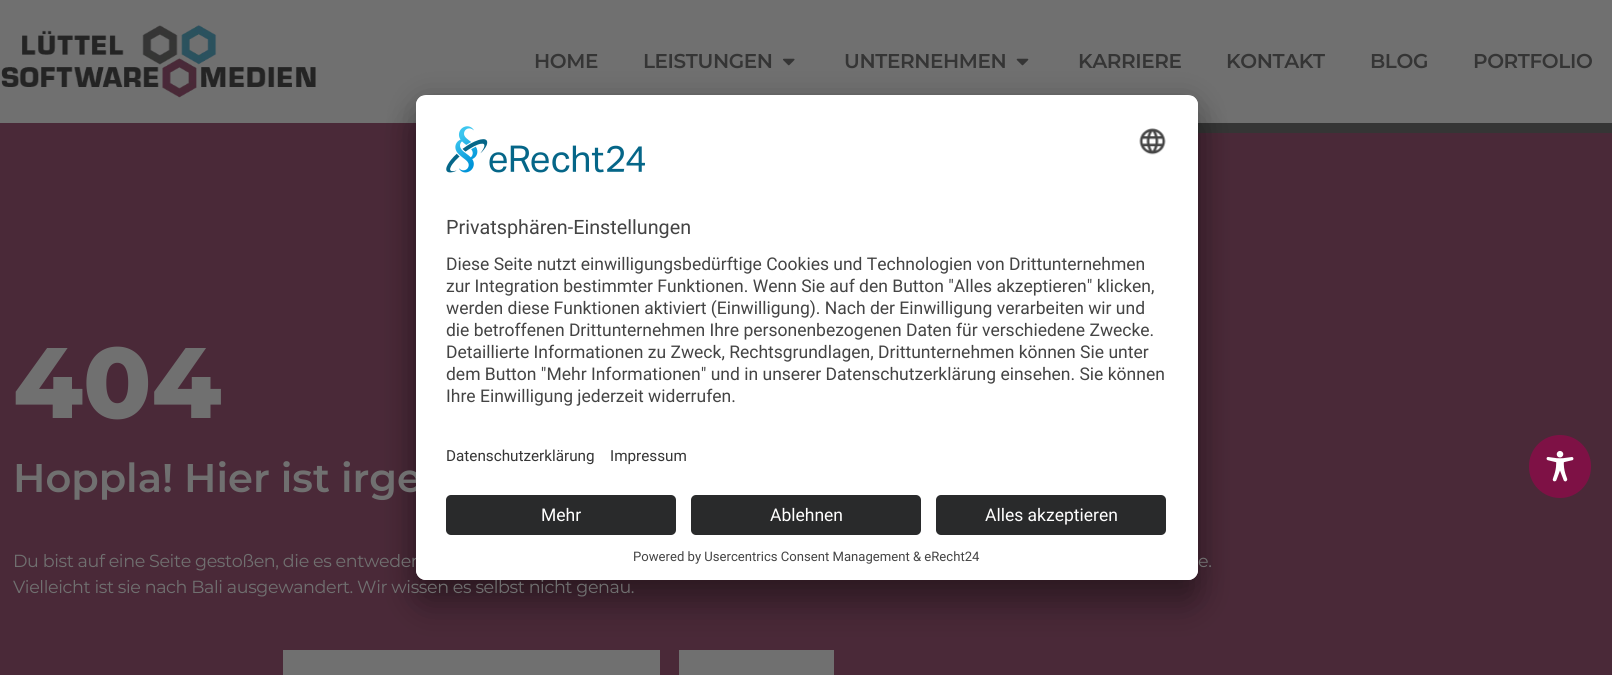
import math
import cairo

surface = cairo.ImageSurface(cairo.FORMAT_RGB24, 1612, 675)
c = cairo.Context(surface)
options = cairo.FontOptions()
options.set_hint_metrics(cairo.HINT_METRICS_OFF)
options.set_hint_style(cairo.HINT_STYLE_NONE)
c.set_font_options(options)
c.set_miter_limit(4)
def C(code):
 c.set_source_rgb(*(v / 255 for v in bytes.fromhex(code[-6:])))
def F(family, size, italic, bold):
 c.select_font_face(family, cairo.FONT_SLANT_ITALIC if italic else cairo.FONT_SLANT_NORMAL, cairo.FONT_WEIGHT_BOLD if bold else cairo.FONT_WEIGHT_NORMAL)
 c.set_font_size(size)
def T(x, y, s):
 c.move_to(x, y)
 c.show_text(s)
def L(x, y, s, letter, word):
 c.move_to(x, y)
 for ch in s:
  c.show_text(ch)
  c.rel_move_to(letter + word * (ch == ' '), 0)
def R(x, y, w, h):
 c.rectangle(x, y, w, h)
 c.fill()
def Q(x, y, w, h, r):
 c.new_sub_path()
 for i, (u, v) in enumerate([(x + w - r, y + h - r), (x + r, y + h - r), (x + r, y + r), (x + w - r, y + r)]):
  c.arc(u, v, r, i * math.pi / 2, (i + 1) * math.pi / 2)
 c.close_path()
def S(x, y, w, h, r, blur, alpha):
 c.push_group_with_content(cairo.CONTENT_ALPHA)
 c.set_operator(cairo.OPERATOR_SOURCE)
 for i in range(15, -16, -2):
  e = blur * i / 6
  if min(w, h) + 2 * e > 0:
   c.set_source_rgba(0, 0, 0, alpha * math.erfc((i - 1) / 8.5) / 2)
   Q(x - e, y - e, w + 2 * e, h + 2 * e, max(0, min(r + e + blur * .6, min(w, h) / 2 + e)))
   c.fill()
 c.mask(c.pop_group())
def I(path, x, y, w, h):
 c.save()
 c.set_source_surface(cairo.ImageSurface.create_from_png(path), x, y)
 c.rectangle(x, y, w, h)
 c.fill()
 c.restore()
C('707070')
c.paint()
I('1.png',1,25,315,73)
F('Montserrat SemiBold',20,0,0)
C('353535')
L(534,68,'HOME',-.38,0)
L(643,68,'LEISTUNGEN',-.38,0)
I('2.png',783,58,12,8)
L(844,68,'UNTERNEHMEN',-.38,0)
I('3.png',1016,58,13,8)
L(1078,68,'KARRIERE',-.38,0)
L(1226,68,'KONTAKT',-.38,0)
L(1370,68,'BLOG',-.38,0)
L(1473,68,'PORTFOLIO',-.38,0)
C('4a2938')
R(0,123,416,10)
C('353535')
R(1198,123,414,10)
C('4a2938')
R(0,133,1612,542)
C('707070')
R(283,650,377,25)
R(679,650,155,25)
C('000000')
S(416,120,782,485,10,17.5,.3)
S(416,101,782,485,10,16,.22)
F('Montserrat SemiBold',40,0,0)
C('707070')
T(13,492,'Hoppla! Hier ist irge')
F('Montserrat',17.5,0,0)
L(13,567,'Du bist auf eine Seite gestoßen, die es entweder',-.38,0)
C('ffffff')
Q(416,95,782,485,10)
c.fill()
c.save()
Q(416,95,782,485,10)
c.clip()
c.new_path()
c.move_to(426,95)
c.line_to(1188,95)
c.curve_to(1193.5,95,1198,99.5,1198,105)
c.line_to(1198,485)
c.line_to(416,485)
c.line_to(416,105)
c.curve_to(416,99.5,420.5,95,426,95)
c.close_path()
c.clip()
R(416,96,782,389)
c.restore()
I('4.png',446,126,199,47)
I('5.png',1139,128,27,27)
F('Roboto',19.75,0,0)
C('444444')
T(446,234,'Privatsphären-Einstellungen')
F('Roboto',17.5,0,0)
T(446,270,'Diese Seite nutzt einwilligungsbedürftige Cookies und Technologien von Drittunternehmen')
T(446,292,'zur Integration bestimmter Funktionen. Wenn Sie auf den Button "Alles akzeptieren" klicken,')
T(446,314,'werden diese Funktionen aktiviert (Einwilligung). Nach der Einwilligung verarbeiten wir und')
T(446,336,'die betroffenen Drittunternehmen Ihre personenbezogenen Daten für verschiedene Zwecke.')
T(446,358,'Detaillierte Informationen zu Zweck, Rechtsgrundlagen, Drittunternehmen können Sie unter')
T(446,380,'dem Button "Mehr Informationen" und in unserer Datenschutzerklärung einsehen. Sie können')
T(446,402,'Ihre Einwilligung jederzeit widerrufen.')
F('Roboto',15.25,0,0)
C('353535')
T(446,461,'Datenschutzerklärung')
T(610,461,'Impressum')
C('ffffff')
c.new_path()
c.move_to(416,485)
c.line_to(1198,485)
c.line_to(1198,570)
c.curve_to(1198,575.5,1193.5,580,1188,580)
c.line_to(426,580)
c.curve_to(420.5,580,416,575.5,416,570)
c.close_path()
c.fill()
C('292a2b')
Q(446,495,230,40,5)
c.fill()
F('Roboto',17.5,0,0)
C('ffffff')
T(541,521,'Mehr')
C('292a2b')
Q(691,495,230,40,5)
c.fill()
C('ffffff')
T(770,521,'Ablehnen')
C('292a2b')
Q(936,495,230,40,5)
c.fill()
C('ffffff')
T(985,521,'Alles akzeptieren')
F('Roboto',13.1,0,0)
C('444444')
T(633,561,'Powered by Usercentrics Consent Management & eRecht24')
F('Montserrat ExtraBold',100,0,0)
C('707070')
T(13,418,'404')
F('Montserrat',17.5,0,0)
L(1198,567,'e.',-.38,0)
L(13,593,'Vielleicht ist sie nach Bali ausgewandert. Wir wissen es selbst nicht genau.',-.38,0)
C('7e1145')
Q(1529,435,62,63,31)
c.fill()
I('6.png',1546,451,28,31)
surface.write_to_png('o.png')
